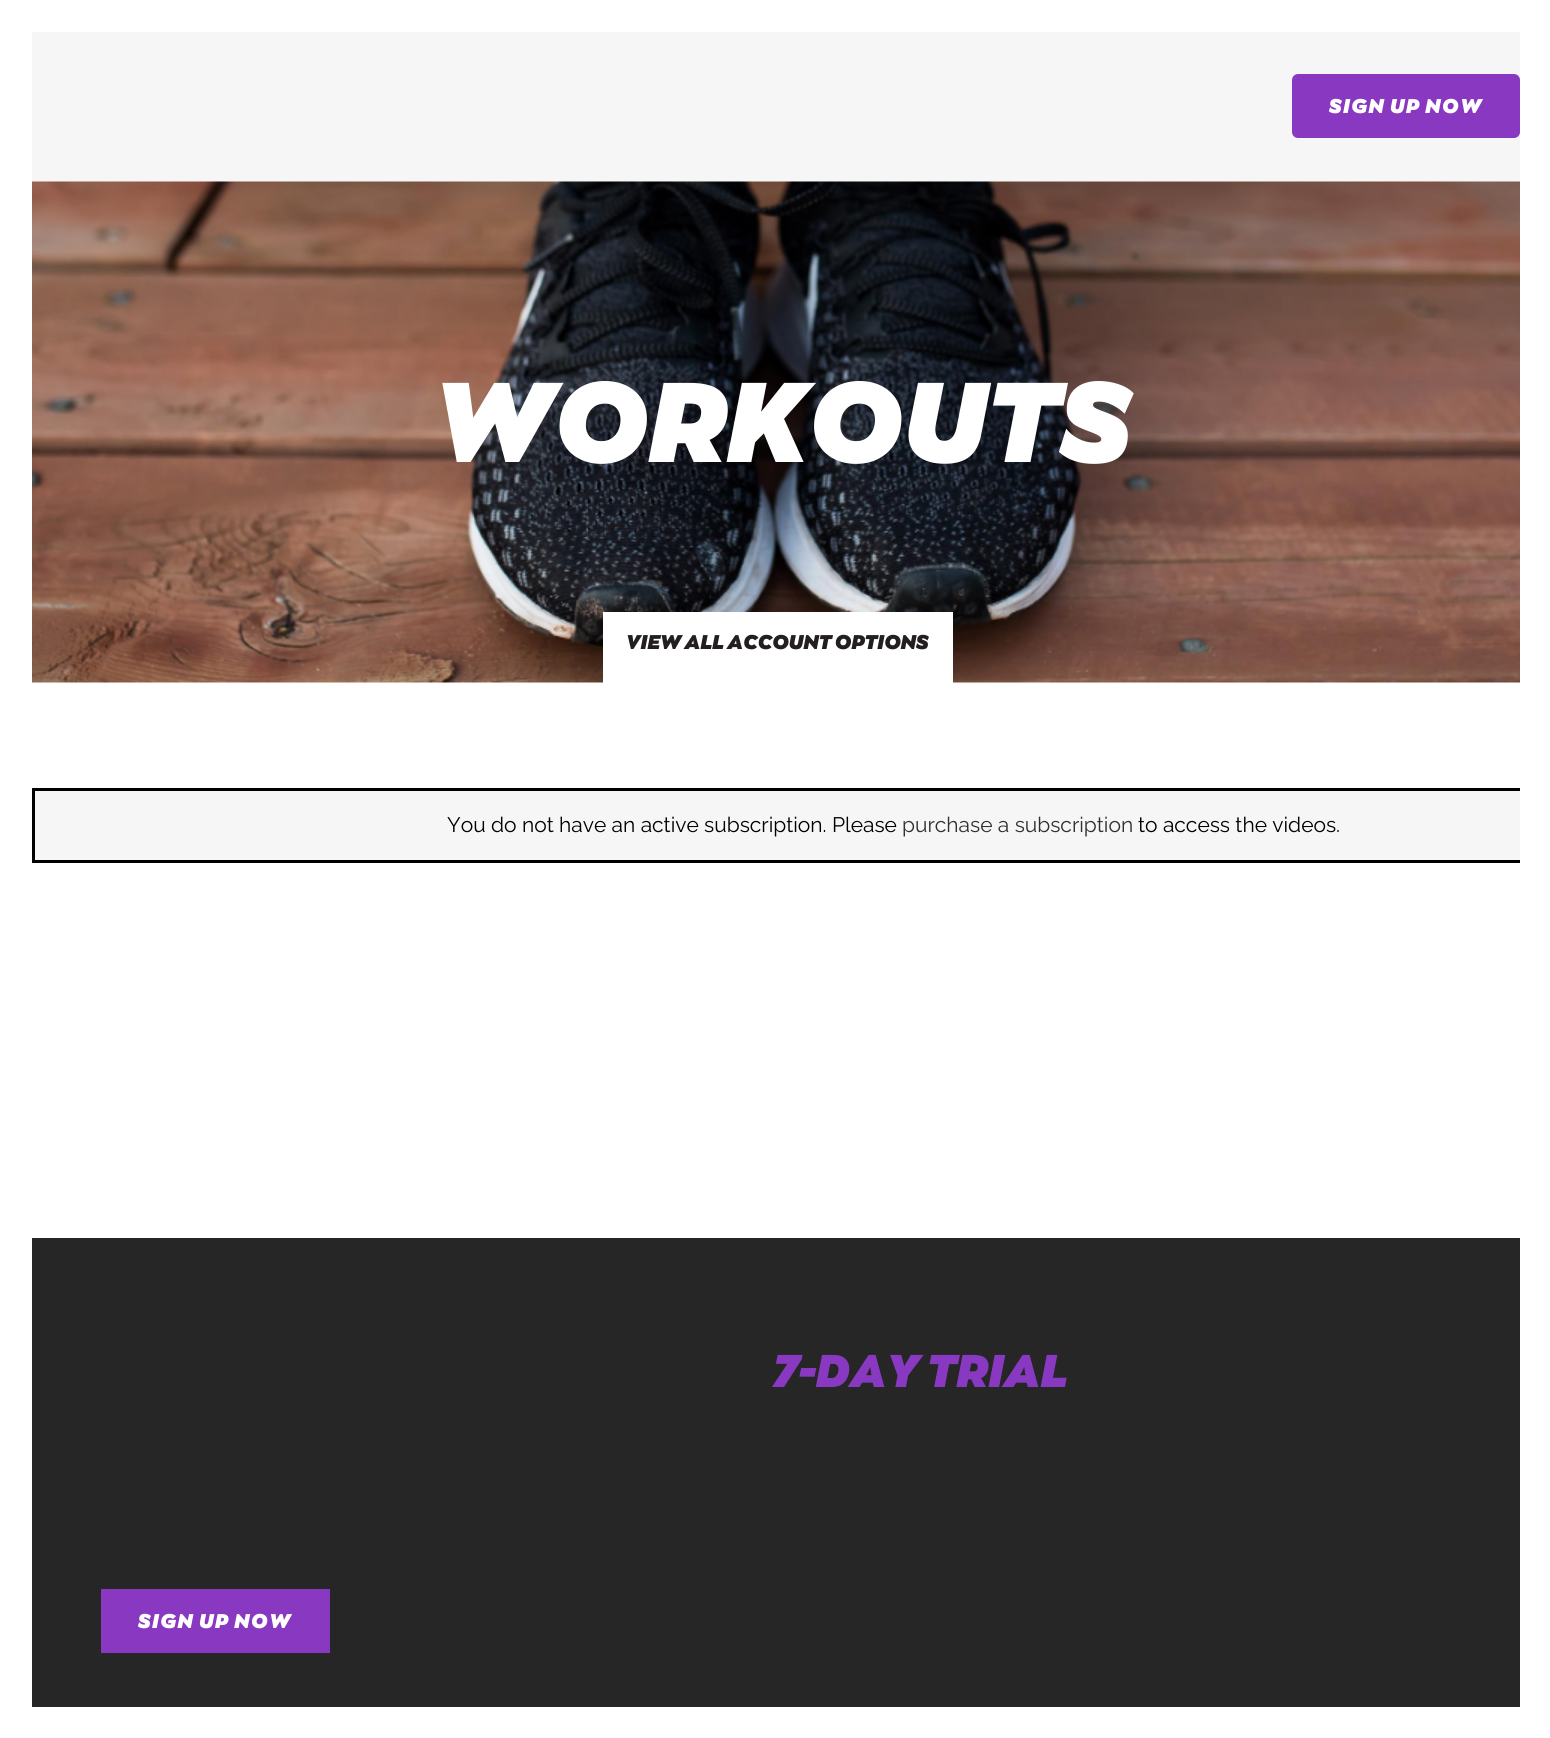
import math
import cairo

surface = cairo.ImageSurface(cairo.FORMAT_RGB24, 1550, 1738)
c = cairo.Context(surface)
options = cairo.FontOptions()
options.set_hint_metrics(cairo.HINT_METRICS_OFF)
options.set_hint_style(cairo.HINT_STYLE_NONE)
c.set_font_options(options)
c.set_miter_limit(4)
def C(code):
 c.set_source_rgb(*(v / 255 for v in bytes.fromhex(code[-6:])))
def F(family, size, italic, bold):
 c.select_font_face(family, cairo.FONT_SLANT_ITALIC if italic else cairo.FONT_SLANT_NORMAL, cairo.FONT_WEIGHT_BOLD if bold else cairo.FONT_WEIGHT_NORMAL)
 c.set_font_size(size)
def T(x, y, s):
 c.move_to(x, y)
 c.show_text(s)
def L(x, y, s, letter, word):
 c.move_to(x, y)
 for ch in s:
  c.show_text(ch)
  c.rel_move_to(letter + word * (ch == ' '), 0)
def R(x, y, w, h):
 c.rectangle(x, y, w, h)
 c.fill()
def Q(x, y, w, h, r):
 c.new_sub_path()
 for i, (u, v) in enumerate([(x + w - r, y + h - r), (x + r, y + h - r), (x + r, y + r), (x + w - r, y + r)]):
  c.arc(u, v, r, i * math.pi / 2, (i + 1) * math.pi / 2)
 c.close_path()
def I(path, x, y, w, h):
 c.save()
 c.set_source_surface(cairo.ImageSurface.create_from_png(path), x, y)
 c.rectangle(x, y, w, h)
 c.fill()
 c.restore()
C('f6f6f6')
c.paint()
C('8939c1')
Q(1293.5,75.5,225,61,4.5)
c.fill_preserve()
c.set_line_width(3)
c.stroke()
F('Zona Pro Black',19.5,1,0)
C('ffffff')
L(1329,113,'SIGN UP NOW',1.5,0)
R(0,0,1550,32)
R(0,32,32,1706)
R(32,682,1488,556)
I('1.png',32,181,1488,502)
F('Zona Pro Black',111,1,0)
T(433,462,'WORKOUTS')
R(603,612,350,71)
F('Zona Pro Black',19.5,1,0)
C('231f20')
T(626,649,'VIEW ALL ACCOUNT OPTIONS')
C('f6f6f6')
R(35,791,1485,69)
c.rectangle(33.5,789.5,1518,72)
C('000000')
c.stroke()
F('Raleway',21,0,0)
T(447,832,'You do not have an active subscription. Please')
C('303030')
T(902,832,'purchase a subscription')
C('000000')
T(1138,832,'to access the videos.')
C('ffffff')
R(32,1707,1488,31)
C('262626')
R(32,1238,1488,469)
F('Zona Pro Black',45,1,0)
C('8939c1')
T(773,1387,'7-DAY TRIAL')
R(101,1589,229,64)
F('Zona Pro Black',19.5,1,0)
C('ffffff')
L(138,1628,'SIGN UP NOW',1.5,0)
R(1520,32,30,1706)
surface.write_to_png('o.png')
